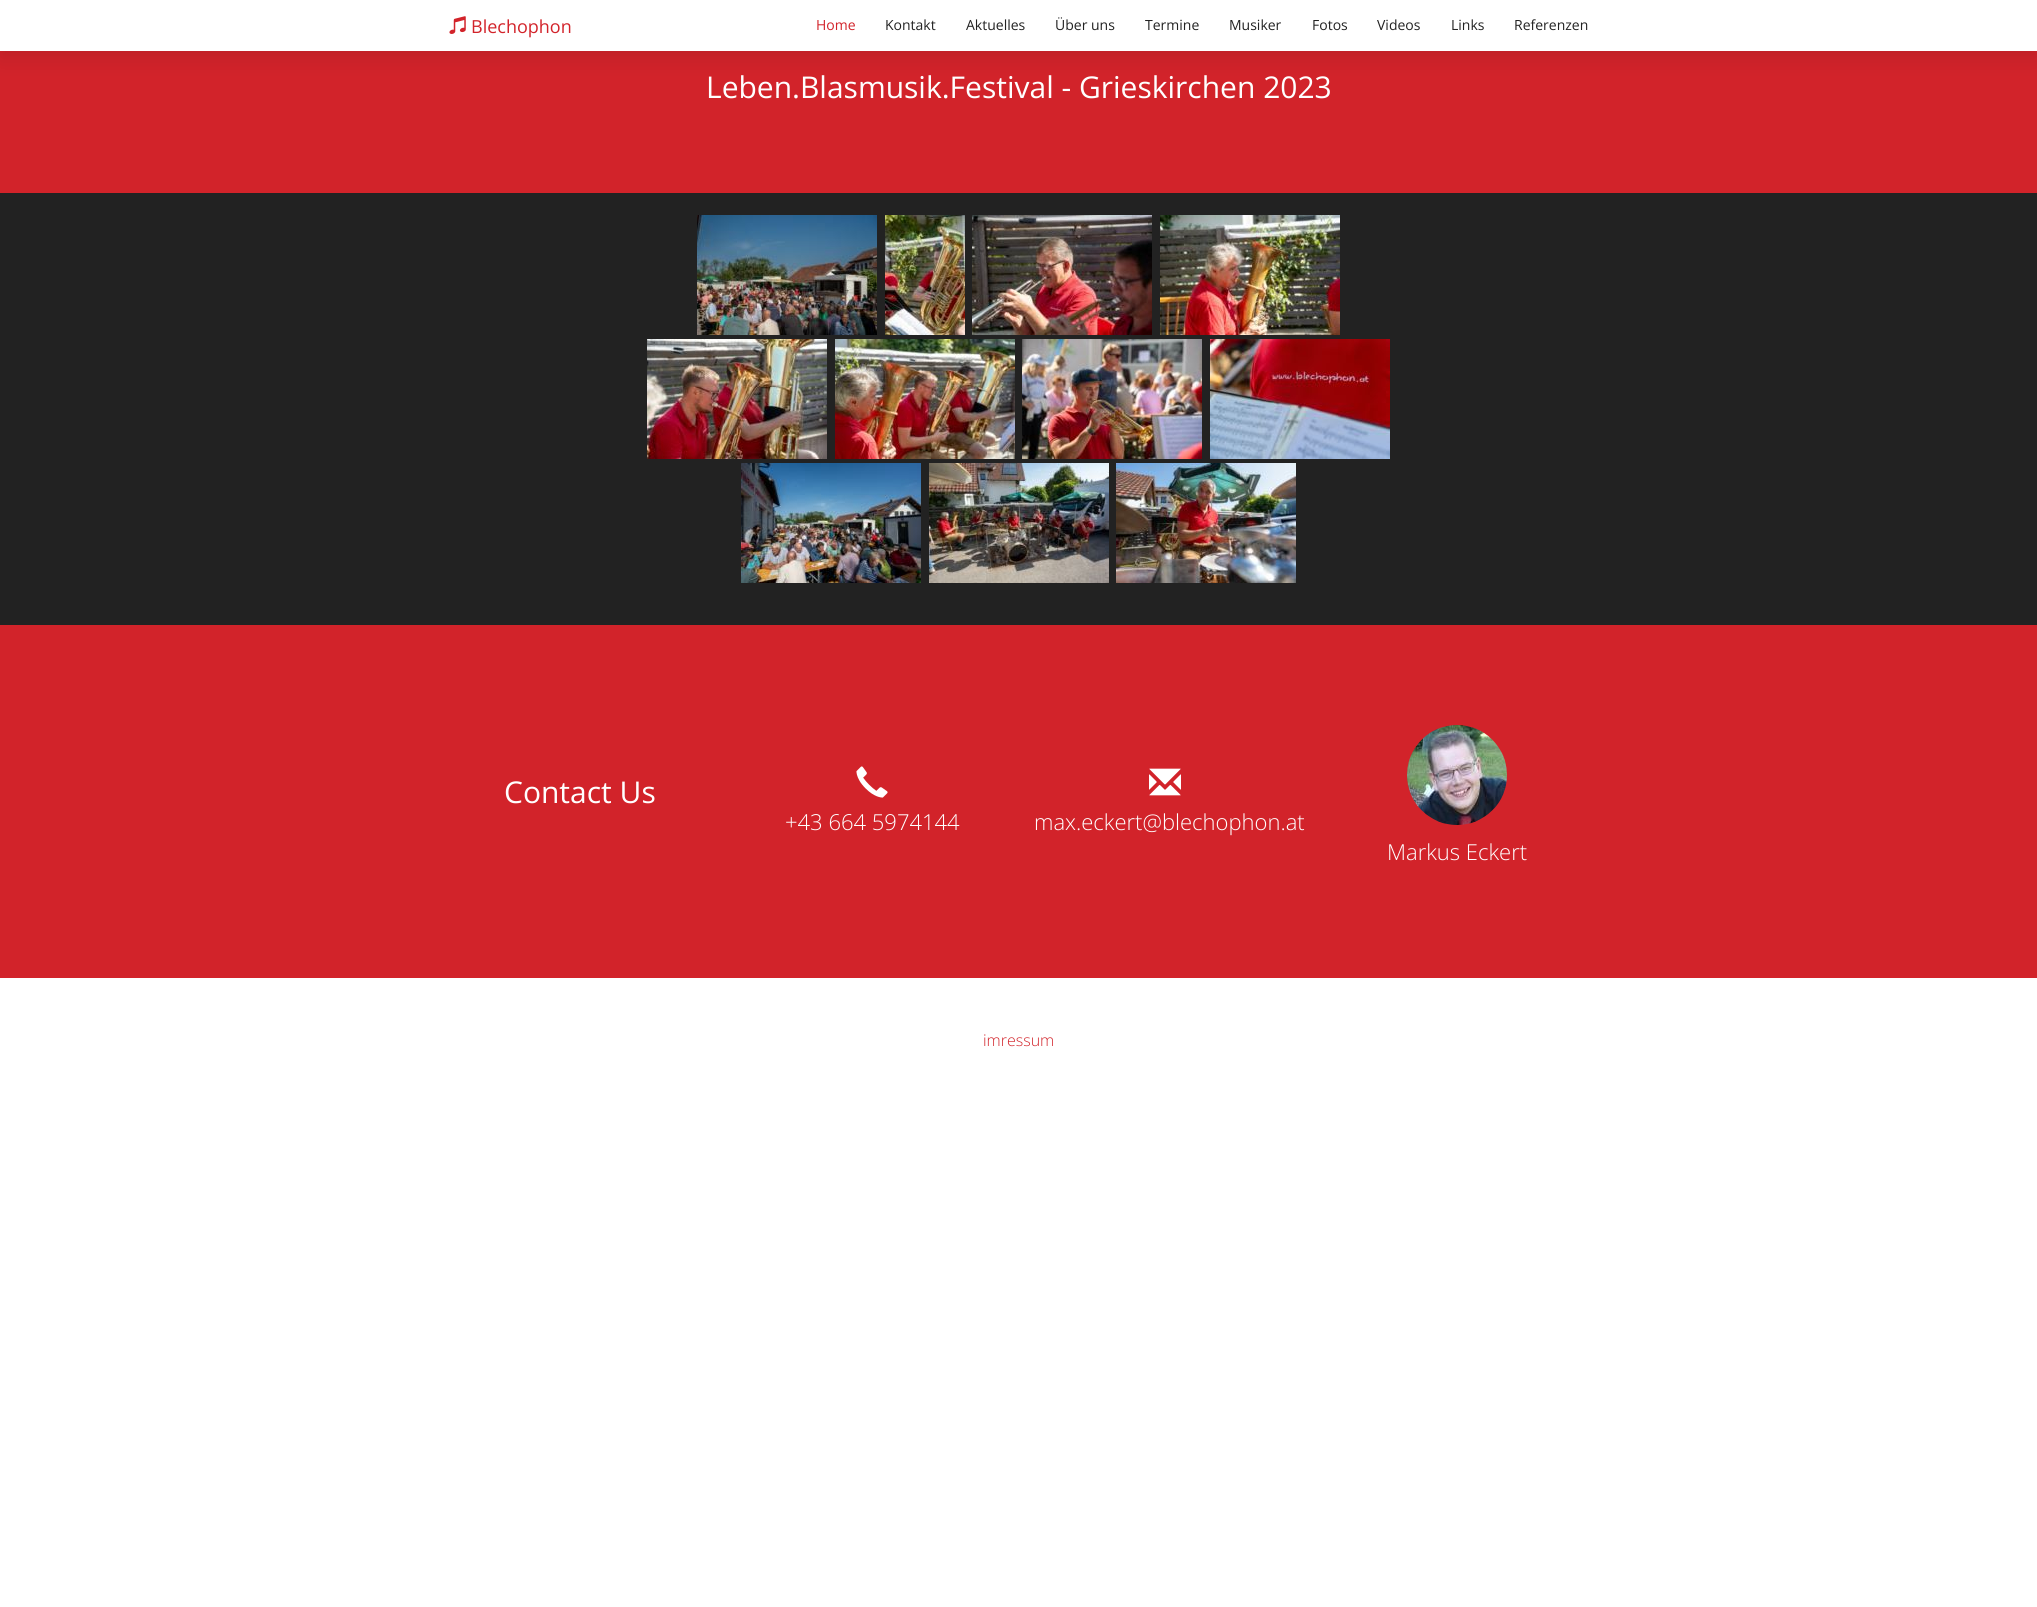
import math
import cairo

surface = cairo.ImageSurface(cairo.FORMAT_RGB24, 2037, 1607)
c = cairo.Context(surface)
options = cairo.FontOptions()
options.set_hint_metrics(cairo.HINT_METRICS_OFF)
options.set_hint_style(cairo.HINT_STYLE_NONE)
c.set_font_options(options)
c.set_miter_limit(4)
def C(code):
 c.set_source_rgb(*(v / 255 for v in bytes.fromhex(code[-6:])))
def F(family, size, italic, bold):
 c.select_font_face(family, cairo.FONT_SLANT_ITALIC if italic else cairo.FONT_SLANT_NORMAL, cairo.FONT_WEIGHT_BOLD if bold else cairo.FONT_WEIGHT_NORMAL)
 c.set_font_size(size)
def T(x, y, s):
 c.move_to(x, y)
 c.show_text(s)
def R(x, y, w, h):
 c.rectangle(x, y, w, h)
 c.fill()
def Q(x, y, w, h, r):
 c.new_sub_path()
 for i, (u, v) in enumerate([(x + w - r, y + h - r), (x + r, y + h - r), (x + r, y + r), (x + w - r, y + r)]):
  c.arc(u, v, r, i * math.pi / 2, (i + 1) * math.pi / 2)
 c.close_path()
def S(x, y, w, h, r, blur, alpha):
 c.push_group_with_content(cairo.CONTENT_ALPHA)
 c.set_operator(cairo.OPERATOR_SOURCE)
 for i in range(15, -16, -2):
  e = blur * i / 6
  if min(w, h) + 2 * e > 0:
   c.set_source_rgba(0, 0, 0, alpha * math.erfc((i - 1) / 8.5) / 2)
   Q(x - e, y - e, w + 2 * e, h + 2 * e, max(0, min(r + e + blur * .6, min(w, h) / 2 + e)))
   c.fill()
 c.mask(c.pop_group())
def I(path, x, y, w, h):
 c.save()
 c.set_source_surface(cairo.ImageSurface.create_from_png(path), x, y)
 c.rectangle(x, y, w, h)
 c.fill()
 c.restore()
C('ffffff')
c.paint()
C('d2232a')
R(0,51,2037,142)
C('000000')
S(0,7,2037,51,0,10,.1)
C('ffffff')
R(0,0,2037,51)
I('1.png',449,16,17,18)
F('Open Sans',18,0,0)
C('d2232a')
T(471,33,'Blechophon')
F('Open Sans',14,0,0)
T(816,30,'Home')
C('222222')
T(885,30,'Kontakt')
T(966,30,'Aktuelles')
T(1055,30,'Über uns')
T(1145,30,'Termine')
T(1229,30,'Musiker')
T(1312,30,'Fotos')
T(1377,30,'Videos')
T(1451,30,'Links')
T(1514,30,'Referenzen')
F('Open Sans',30,0,0)
C('ffffff')
T(706,98,'Leben.Blasmusik.Festival - Grieskirchen 2023')
C('222222')
R(0,193,2037,432)
I('2.png',697,215,180,120)
I('3.png',885,215,80,120)
I('4.png',972,215,180,120)
I('5.png',1160,215,180,120)
I('6.png',647,339,180,120)
I('7.png',835,339,180,120)
I('8.png',1022,339,180,120)
I('9.png',1210,339,180,120)
I('10.png',741,463,180,120)
I('11.png',929,463,180,120)
I('12.png',1116,463,180,120)
C('d2232a')
R(0,625,2037,353)
C('ffffff')
T(504,803,'Contact Us')
I('13.png',856,766,32,32)
F('Open Sans Light',22,0,0)
T(785,830,'+43 664 5974144')
I('14.png',1149,768,32,28)
T(1034,830,'max.eckert@blechophon.at')
I('15.png',1407,725,100,100)
T(1387,860,'Markus Eckert')
F('Open Sans Light',16,0,0)
C('d2232a')
T(983,1046,'imressum')
surface.write_to_png('o.png')
